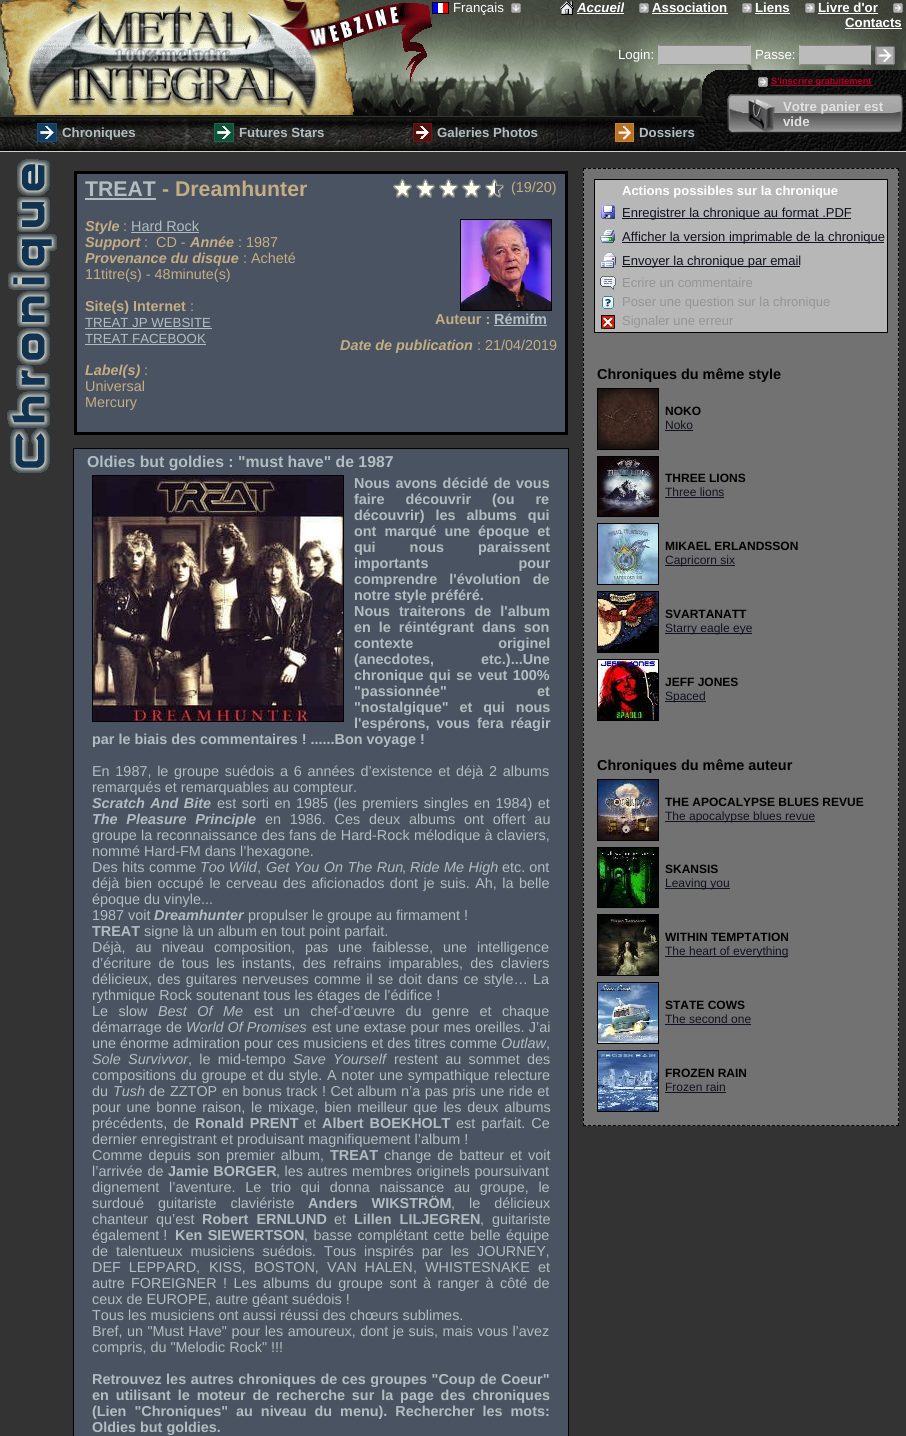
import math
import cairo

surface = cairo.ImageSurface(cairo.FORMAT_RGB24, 906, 1436)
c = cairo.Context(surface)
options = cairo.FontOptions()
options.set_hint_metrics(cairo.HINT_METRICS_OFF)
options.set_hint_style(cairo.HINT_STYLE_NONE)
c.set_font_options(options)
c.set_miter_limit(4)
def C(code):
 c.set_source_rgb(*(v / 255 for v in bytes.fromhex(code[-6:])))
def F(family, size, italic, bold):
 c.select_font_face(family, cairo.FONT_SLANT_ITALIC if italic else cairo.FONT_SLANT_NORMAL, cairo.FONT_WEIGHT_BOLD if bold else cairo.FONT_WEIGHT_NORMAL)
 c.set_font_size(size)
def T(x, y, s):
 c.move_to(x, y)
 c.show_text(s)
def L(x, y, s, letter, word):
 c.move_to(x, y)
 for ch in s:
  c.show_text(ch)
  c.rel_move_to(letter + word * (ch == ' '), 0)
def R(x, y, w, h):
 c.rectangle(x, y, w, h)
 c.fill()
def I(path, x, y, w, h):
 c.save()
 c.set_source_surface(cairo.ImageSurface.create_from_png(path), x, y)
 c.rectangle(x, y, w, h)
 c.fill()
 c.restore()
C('333333')
c.paint()
C('111111')
R(0,117,702,2)
I('1.png',0,0,906,117)
I('2.png',0,0,432,115)
c.rectangle(432.5,2.5,16,11)
C('000000')
c.set_line_width(1)
c.stroke()
I('3.png',433,3,15,10)
F('Liberation Sans',13.25,0,0)
C('ffffff')
T(453,12,'Français')
I('4.png',511,3,10,10)
I('5.png',560,1,14,14)
F('Liberation Sans',13.25,1,1)
T(577,12,'Accueil')
R(577,13,47,1)
I('6.png',639,3,10,10)
F('Liberation Sans',13.25,0,1)
T(652,12,'Association')
R(652,13,76,1)
I('7.png',742,3,10,10)
T(755,12,'Liens')
R(755,13,35,1)
I('8.png',805,3,10,10)
T(818,12,'Livre d\'or')
R(818,13,60,1)
I('9.png',893,3,10,10)
T(845,27,'Contacts')
R(845,28,57,1)
F('Liberation Sans',13.25,0,0)
T(618,59,'Login:')
C('bbbbbb')
R(658,45,93,20)
C('888888')
c.new_path()
c.move_to(658,45)
c.line_to(751,45)
c.line_to(749,46)
c.line_to(660,46)
c.close_path()
c.fill()
c.new_path()
c.move_to(751,65)
c.line_to(658,65)
c.line_to(660,64)
c.line_to(749,64)
c.close_path()
c.fill()
C('ffffff')
T(755,59,'Passe:')
C('bbbbbb')
R(799,45,72,20)
C('888888')
c.new_path()
c.move_to(799,45)
c.line_to(871,45)
c.line_to(869,46)
c.line_to(801,46)
c.close_path()
c.fill()
c.new_path()
c.move_to(871,65)
c.line_to(799,65)
c.line_to(801,64)
c.line_to(869,64)
c.close_path()
c.fill()
I('10.png',875,46,20,19)
I('11.png',702,70,23,49)
I('12.png',725,70,181,81)
I('13.png',758,77,10,10)
C('b60027')
R(771,85,102,1)
F('Liberation Sans',9.25,0,1)
T(771,84,'S\'inscrire gratuitement')
I('14.png',727,94,15,40)
I('15.png',742,94,150,40)
I('16.png',748,99,27,33)
F('Liberation Sans',13.25,0,1)
C('e1e1e1')
T(783,111,'Votre panier est')
T(783,126,'vide')
I('17.png',892,94,11,40)
I('18.png',0,119,725,32)
C('cccccc')
R(0,151,906,1)
I('19.png',37,123,20,19)
C('b2bdc1')
T(62,137,'Chroniques')
I('20.png',214,123,20,19)
T(239,137,'Futures Stars')
I('21.png',413,123,19,19)
T(437,137,'Galeries Photos')
I('22.png',615,123,19,19)
T(639,137,'Dossiers')
I('23.png',7,159,50,314)
C('4a5361')
c.rectangle(75.5,172.5,491,261)
c.fill_preserve()
C('000000')
c.set_line_width(3)
c.stroke()
F('Liberation Sans',21.25,0,1)
C('b2bdc1')
T(85,196,'TREAT')
R(85,198,71,2)
C('c4ad84')
T(162,196,'- Dreamhunter')
F('Liberation Sans',14.4,1,1)
T(85,231,'Style')
F('Liberation Sans',14.4,0,0)
T(123,231,':')
C('b2bdc1')
T(131,231,'Hard Rock')
R(131,232,68,1)
F('Liberation Sans',14.4,1,1)
C('c4ad84')
T(85,247,'Support')
F('Liberation Sans',14.4,0,0)
T(144,247,':')
T(156,247,'CD -')
F('Liberation Sans',14.4,1,1)
T(190,247,'Année')
F('Liberation Sans',14.4,0,0)
T(238,247,': 1987')
F('Liberation Sans',14.4,1,1)
T(85,263,'Provenance du disque')
F('Liberation Sans',14.4,0,0)
T(243,263,': Acheté')
T(85,279,'11titre(s) - 48minute(s)')
F('Liberation Sans',14.4,0,1)
T(85,311,'Site(s) Internet')
F('Liberation Sans',14.4,0,0)
T(190,311,':')
F('Liberation Sans',13.25,0,0)
C('b2bdc1')
T(85,327,'TREAT JP WEBSITE')
R(85,328,127,1)
T(85,343,'TREAT FACEBOOK')
R(85,344,121,1)
F('Liberation Sans',14.4,1,1)
C('c4ad84')
T(85,375,'Label(s)')
F('Liberation Sans',14.4,0,0)
T(144,375,':')
T(85,391,'Universal')
T(85,407,'Mercury')
I('24.png',393,179,19,19)
I('24.png',416,179,19,19)
I('24.png',439,179,19,19)
I('24.png',462,179,19,19)
I('25.png',485,179,19,19)
T(511,192,'(19/20)')
c.rectangle(460.5,219.5,91,91)
C('000000')
c.set_line_width(1)
c.stroke()
I('26.png',461,220,90,90)
F('Liberation Sans',14.4,0,1)
C('c4ad84')
T(435,324,'Auteur :')
C('b2bdc1')
T(494,324,'Rémifm')
R(494,325,53,1)
F('Liberation Sans',14.4,1,1)
C('c4ad84')
T(340,350,'Date de publication')
F('Liberation Sans',14.4,0,0)
T(477,350,': 21/04/2019')
C('4a5361')
c.rectangle(73.5,448.5,495,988)
c.fill_preserve()
C('000000')
c.stroke()
F('Liberation Sans',15.8,0,1)
C('b2bdc1')
T(87,467,'Oldies but goldies : "must have" de 1987')
c.rectangle(92.5,475.5,251,246)
C('000000')
c.stroke()
I('27.png',93,476,250,245)
F('Liberation Sans',14.4,0,1)
C('b2bdc1')
L(354,488,'Nous avons décidé de vous',0,1.5)
L(354,504,'faire découvrir (ou re',0,17)
L(354,520,'découvrir) les albums qui',0,7)
L(354,536,'ont marqué une époque et',0,4)
L(354,552,'qui nous paraissent',0,30)
L(354,568,'importants pour',0,86)
L(354,584,'comprendre l\'évolution de',0,8)
T(354,600,'notre style préféré.')
L(354,616,'Nous traiterons de l\'album',0,5)
L(354,632,'en le réintégrant dans son',0,4)
L(354,648,'contexte originel',0,81)
L(354,664,'(anecdotes, etc.)...Une',0,43)
L(354,680,'chronique qui se veut 100%',0,1.5)
L(354,696,'"passionnée" et',0,86)
L(354,712,'"nostalgique" et qui nous',0,7)
L(354,728,'l\'espérons, vous fera réagir',0,3)
T(92,744,'par le biais des commentaires ! ......Bon voyage !')
F('Liberation Sans',14.4,0,0)
L(92,776,'En 1987, le groupe suédois a 6 années d’existence et déjà 2 albums',0,1.75)
T(92,792,'remarqués et remarquables au compteur.')
F('Liberation Sans',14.4,1,1)
L(92,808,'Scratch And Bite',0,1.5)
F('Liberation Sans',14.4,0,0)
L(217,808,'est sorti en 1985 (les premiers singles en 1984) et',0,1.5)
F('Liberation Sans',14.4,1,1)
L(92,824,'The Pleasure Principle',0,4.75)
F('Liberation Sans',14.4,0,0)
L(265,824,'en 1986. Ces deux albums ont offert au',0,4.75)
L(92,840,'groupe la reconnaissance des fans de Hard-Rock mélodique à claviers,',0,.25)
T(92,856,'nommé Hard-FM dans l’hexagone.')
L(92,872,'Des hits comme',0,.5)
F('Liberation Sans',14.4,1,0)
T(200,872,'Too Wild')
F('Liberation Sans',14.4,0,0)
T(257,872,',')
F('Liberation Sans',14.4,1,0)
L(266,872,'Get You On The Run',0,.5)
F('Liberation Sans',14.4,0,0)
T(402,872,',')
F('Liberation Sans',14.4,1,0)
L(410,872,'Ride Me High',0,.5)
F('Liberation Sans',14.4,0,0)
T(502,872,'etc. ont')
L(92,888,'déjà bien occupé le cerveau des aficionados dont je suis. Ah, la belle',0,1.5)
T(92,904,'époque du vinyle...')
T(92,920,'1987 voit')
F('Liberation Sans',14.4,1,1)
T(154,920,'Dreamhunter')
F('Liberation Sans',14.4,0,0)
T(248,920,'propulser le groupe au firmament !')
F('Liberation Sans',14.4,0,1)
T(92,936,'TREAT')
F('Liberation Sans',14.4,0,0)
T(144,936,'signe là un album en tout point parfait.')
L(92,952,'Déjà, au niveau composition, pas une faiblesse, une intelligence',0,6)
L(92,968,'d’écriture de tous les instants, des refrains imparables, des claviers',0,3.25)
L(92,984,'délicieux, des guitares nerveuses comme il se doit dans ce style… La',0,1.25)
T(92,1000,'rythmique Rock soutenant tous les étages de l’édifice !')
L(92,1016,'Le slow',0,6.5)
F('Liberation Sans',14.4,1,0)
L(158,1016,'Best Of Me',0,6.5)
F('Liberation Sans',14.4,0,0)
L(254,1016,'est un chef-d’œuvre du genre et chaque',0,6.5)
L(92,1032,'démarrage de',0,.25)
F('Liberation Sans',14.4,1,0)
T(186,1032,'World Of Promises')
F('Liberation Sans',14.4,0,0)
L(312,1032,'est une extase pour mes oreilles. J’ai',0,.25)
T(92,1048,'une énorme admiration pour ces musiciens et des titres comme')
F('Liberation Sans',14.4,1,0)
T(501,1048,'Outlaw')
F('Liberation Sans',14.4,0,0)
T(546,1048,',')
F('Liberation Sans',14.4,1,0)
L(92,1064,'Sole Survivvor',0,3.25)
F('Liberation Sans',14.4,0,0)
L(188,1064,', le mid-tempo',0,3.25)
F('Liberation Sans',14.4,1,0)
L(293,1064,'Save Yourself',0,3.25)
F('Liberation Sans',14.4,0,0)
L(394,1064,'restent au sommet des',0,3.25)
L(92,1080,'compositions du groupe et du style. A noter une sympathique relecture',0,.75)
T(92,1096,'du')
F('Liberation Sans',14.4,1,0)
T(113,1096,'Tush')
F('Liberation Sans',14.4,0,0)
T(149,1096,'de')
T(170,1096,'ZZTOP')
L(222,1096,'en bonus track ! Cet album n’a pas pris une ride et',0,.5)
L(92,1112,'pour une bonne raison, le mixage, bien meilleur que les deux albums',0,1.75)
L(92,1128,'précédents, de',0,2)
F('Liberation Sans',14.4,0,1)
L(195,1128,'Ronald PRENT',0,2)
F('Liberation Sans',14.4,0,0)
T(304,1128,'et')
F('Liberation Sans',14.4,0,1)
L(322,1128,'Albert BOEKHOLT',0,2)
F('Liberation Sans',14.4,0,0)
L(456,1128,'est parfait. Ce',0,2)
T(92,1144,'dernier enregistrant et produisant magnifiquement l’album !')
L(92,1160,'Comme depuis son premier album,',0,2)
F('Liberation Sans',14.4,0,1)
T(330,1160,'TREAT')
F('Liberation Sans',14.4,0,0)
L(384,1160,'change de batteur et voit',0,2)
L(92,1176,'l’arrivée de',0,1)
F('Liberation Sans',14.4,0,1)
L(168,1176,'Jamie BORGER',0,.5)
F('Liberation Sans',14.4,0,0)
L(276,1176,', les autres membres originels poursuivant',0,.5)
L(92,1192,'dignement l’aventure. Le trio qui donna naissance au groupe, le',0,5.75)
L(92,1208,'surdoué guitariste claviériste',0,10)
F('Liberation Sans',14.4,0,1)
L(308,1208,'Anders WIKSTRÖM',0,10)
F('Liberation Sans',14.4,0,0)
L(451,1208,', le délicieux',0,10)
L(92,1224,'chanteur qu’est',0,4)
F('Liberation Sans',14.4,0,1)
L(202,1224,'Robert ERNLUND',0,4)
F('Liberation Sans',14.4,0,0)
T(334,1224,'et')
F('Liberation Sans',14.4,0,1)
L(354,1224,'Lillen LILJEGREN',0,4)
F('Liberation Sans',14.4,0,0)
L(480,1224,', guitariste',0,4)
T(92,1240,'également !')
F('Liberation Sans',14.4,0,1)
L(175,1240,'Ken SIEWERTSON',0,1.5)
F('Liberation Sans',14.4,0,0)
L(304,1240,', basse complétant cette belle équipe',0,1.5)
L(92,1256,'de talentueux musiciens suédois. Tous inspirés par les',0,4)
T(477,1256,'JOURNEY,')
L(92,1272,'DEF LEPPARD',0,4)
T(196,1272,',')
T(209,1272,'KISS,')
T(254,1272,'BOSTON,')
L(327,1272,'VAN HALEN',0,4)
T(413,1272,',')
T(425,1272,'WHISTESNAKE')
T(538,1272,'et')
T(92,1288,'autre')
T(131,1288,'FOREIGNER')
L(223,1288,'! Les albums du groupe sont à ranger à côté de',0,2.4)
T(92,1304,'ceux de EUROPE, autre géant suédois !')
T(92,1320,'Tous les musiciens ont aussi réussi des chœurs sublimes.')
L(92,1336,'Bref, un "Must Have" pour les amoureux, dont je suis, mais vous l’avez',0,.5)
T(92,1352,'compris, du "Melodic Rock" !!!')
F('Liberation Sans',14.4,0,1)
L(92,1384,'Retrouvez les autres chroniques de ces groupes "Coup de Coeur"',0,.5)
L(92,1400,'en utilisant le moteur de recherche sur la page des chroniques',0,2.9)
L(92,1416,'(Lien "Chroniques" au niveau du menu). Rechercher les mots:',0,4)
T(92,1432,'Oldies but goldies.')
C('727272')
R(583,168,316,958)
c.new_path()
c.move_to(583,168.5)
c.line_to(899,168.5)
C('000000')
c.set_dash([3,1.97])
c.stroke()
c.new_path()
c.move_to(898.5,168)
c.line_to(898.5,1126)
c.set_dash([3,2])
c.stroke()
c.new_path()
c.move_to(583,1125.5)
c.line_to(899,1125.5)
c.set_dash([3,1.97])
c.stroke()
c.new_path()
c.move_to(583.5,168)
c.line_to(583.5,1126)
c.set_dash([3,2])
c.stroke()
C('b7b7b7')
c.rectangle(594.5,179.5,293,153)
c.fill_preserve()
C('000000')
c.set_dash([])
c.stroke()
F('Liberation Sans',13,0,1)
C('ffffff')
T(622,195,'Actions possibles sur la chronique')
I('28.png',601,205,14,14)
C('101220')
R(622,218,229,1)
F('Liberation Sans',13,0,0)
T(622,217,'Enregistrer la chronique au format .PDF')
I('29.png',600,229,15,14)
R(622,242,262,1)
T(622,241,'Afficher la version imprimable de la chronique')
I('30.png',600,252,16,16)
R(622,266,178,1)
T(622,265,'Envoyer la chronique par email')
I('31.png',600,276,16,14)
C('949494')
T(622,287,'Ecrire un commentaire')
I('32.png',602,296,12,13)
T(622,306,'Poser une question sur la chronique')
I('33.png',601,315,14,14)
T(622,325,'Signaler une erreur')
F('Liberation Sans',14.4,0,1)
C('000000')
T(597,379,'Chroniques du même style')
c.rectangle(597.5,388.5,61,61)
c.stroke()
I('34.png',598,389,60,60)
F('Liberation Sans',12,0,1)
T(665,415,'NOKO')
F('Liberation Sans',12,0,0)
C('101220')
T(665,429,'Noko')
R(665,430,28,1)
c.rectangle(597.5,456.5,61,60)
C('000000')
c.stroke()
I('35.png',598,457,60,59)
F('Liberation Sans',12,0,1)
T(665,482,'THREE LIONS')
F('Liberation Sans',12,0,0)
C('101220')
T(665,496,'Three lions')
R(665,497,59,1)
c.rectangle(597.5,523.5,61,61)
C('000000')
c.stroke()
I('36.png',598,524,60,60)
F('Liberation Sans',12,0,1)
T(665,550,'MIKAEL ERLANDSSON')
C('101220')
R(665,565,70,1)
F('Liberation Sans',12,0,0)
T(665,564,'Capricorn six')
c.rectangle(597.5,591.5,61,61)
C('000000')
c.stroke()
I('37.png',598,592,60,60)
F('Liberation Sans',12,0,1)
T(665,618,'SVARTANATT')
C('101220')
R(665,633,87,1)
F('Liberation Sans',12,0,0)
T(665,632,'Starry eagle eye')
c.rectangle(597.5,659.5,61,61)
C('000000')
c.stroke()
I('38.png',598,660,60,60)
F('Liberation Sans',12,0,1)
T(665,686,'JEFF JONES')
C('101220')
R(665,701,41,1)
F('Liberation Sans',12,0,0)
T(665,700,'Spaced')
F('Liberation Sans',14.4,0,1)
C('000000')
T(597,770,'Chroniques du même auteur')
c.rectangle(597.5,779.5,61,61)
c.stroke()
I('39.png',598,780,60,60)
F('Liberation Sans',12,0,1)
T(665,806,'THE APOCALYPSE BLUES REVUE')
C('101220')
R(665,821,150,1)
F('Liberation Sans',12,0,0)
T(665,820,'The apocalypse blues revue')
c.rectangle(597.5,847.5,61,60)
C('000000')
c.stroke()
I('40.png',598,848,60,59)
F('Liberation Sans',12,0,1)
T(665,873,'SKANSIS')
C('101220')
R(665,888,65,1)
F('Liberation Sans',12,0,0)
T(665,887,'Leaving you')
c.rectangle(597.5,914.5,61,61)
C('000000')
c.stroke()
I('41.png',598,915,60,60)
F('Liberation Sans',12,0,1)
T(665,941,'WITHIN TEMPTATION')
C('101220')
R(665,956,123,1)
F('Liberation Sans',12,0,0)
T(665,955,'The heart of everything')
c.rectangle(597.5,982.5,61,61)
C('000000')
c.stroke()
I('42.png',598,983,60,60)
F('Liberation Sans',12,0,1)
T(665,1009,'STATE COWS')
F('Liberation Sans',12,0,0)
C('101220')
T(665,1023,'The second one')
R(665,1024,86,1)
c.rectangle(597.5,1050.5,61,61)
C('000000')
c.stroke()
I('43.png',598,1051,60,60)
F('Liberation Sans',12,0,1)
T(665,1077,'FROZEN RAIN')
F('Liberation Sans',12,0,0)
C('101220')
T(665,1091,'Frozen rain')
R(665,1092,61,1)
surface.write_to_png('o.png')
